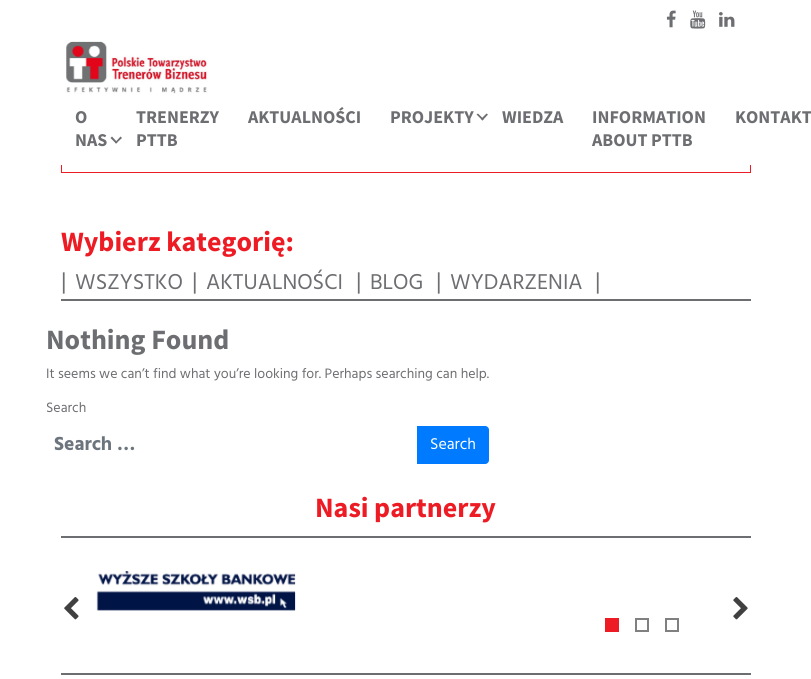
import math
import cairo

surface = cairo.ImageSurface(cairo.FORMAT_RGB24, 811, 679)
c = cairo.Context(surface)
options = cairo.FontOptions()
options.set_hint_metrics(cairo.HINT_METRICS_OFF)
options.set_hint_style(cairo.HINT_STYLE_NONE)
c.set_font_options(options)
c.set_miter_limit(4)
def C(code):
 c.set_source_rgb(*(v / 255 for v in bytes.fromhex(code[-6:])))
def F(family, size, italic, bold):
 c.select_font_face(family, cairo.FONT_SLANT_ITALIC if italic else cairo.FONT_SLANT_NORMAL, cairo.FONT_WEIGHT_BOLD if bold else cairo.FONT_WEIGHT_NORMAL)
 c.set_font_size(size)
def T(x, y, s):
 c.move_to(x, y)
 c.show_text(s)
def R(x, y, w, h):
 c.rectangle(x, y, w, h)
 c.fill()
def I(path, x, y, w, h):
 c.save()
 c.set_source_surface(cairo.ImageSurface.create_from_png(path), x, y)
 c.rectangle(x, y, w, h)
 c.fill()
 c.restore()
C('ffffff')
c.paint()
c.rectangle(61.5,125.5,689,47)
C('ed1c24')
c.set_line_width(1)
c.stroke()
C('ffffff')
R(61,125,690,40)
I('1.png',666,10,10,18)
I('2.png',690,10,16,19)
I('3.png',719,12,16,15)
I('4.png',66,41,142,53)
F('Source Sans Pro',18,0,1)
C('6d6e71')
T(75,123,'O')
T(75,146,'NAS')
c.new_path()
c.move_to(116,143.5)
c.line_to(110.5,138)
c.line_to(112,136.5)
c.line_to(117.5,142.5)
c.close_path()
c.fill()
c.new_path()
c.move_to(116,143.5)
c.line_to(115,142.5)
c.line_to(120.5,136.5)
c.line_to(122,138)
c.close_path()
c.fill()
T(136,123,'TRENERZY')
T(136,146,'PTTB')
T(248,123,'AKTUALNOŚCI')
T(390,123,'PROJEKTY')
c.new_path()
c.move_to(482.5,120.5)
c.line_to(476.5,114.5)
c.line_to(478,113.5)
c.line_to(483.5,119)
c.close_path()
c.fill()
c.new_path()
c.move_to(482.5,120.5)
c.line_to(481,119)
c.line_to(486.5,113.5)
c.line_to(488,114.5)
c.close_path()
c.fill()
T(502,123,'WIEDZA')
T(592,123,'INFORMATION')
T(592,146,'ABOUT PTTB')
T(735,123,'KONTAKT')
R(61,299,690,2)
F('Source Sans Pro',28,0,1)
C('ed1c24')
T(61,251,'Wybierz kategorię:')
F('Hind',24,0,0)
C('6d6e71')
T(61,289,'|')
F('Hind',22,0,0)
T(75,289,'WSZYSTKO')
F('Hind',24,0,0)
T(192,289,'|')
F('Hind',22,0,0)
T(206,289,'AKTUALNOŚCI')
F('Hind',24,0,0)
T(356,289,'|')
F('Hind',22,0,0)
T(370,289,'BLOG')
F('Hind',24,0,0)
T(436,289,'|')
F('Hind',22,0,0)
T(450,289,'WYDARZENIA')
F('Hind',24,0,0)
T(595,289,'|')
F('Source Sans Pro',28,0,1)
T(46,349,'Nothing Found')
F('Hind',14,0,0)
T(46,378,'It seems we can’t find what you’re looking for. Perhaps searching can help.')
T(46,412,'Search')
F('Hind',19.5,0,1)
C('6c757d')
T(54,450,'Search …')
C('007bff')
c.new_path()
c.move_to(417.5,426.5)
c.line_to(485,426.5)
c.curve_to(487,426.5,488.5,428,488.5,430)
c.line_to(488.5,460)
c.curve_to(488.5,462,487,463.5,485,463.5)
c.line_to(417.5,463.5)
c.close_path()
c.fill_preserve()
c.stroke()
F('Hind',16,0,0)
C('ffffff')
T(430,449,'Search')
C('6d6e71')
R(61,536,690,2)
F('Source Sans Pro',28,0,1)
C('ed1c24')
T(315,517,'Nasi partnerzy')
I('5.png',64,597,15,23)
I('6.png',96,571,200,40)
I('7.png',733,597,15,23)
R(605,618,14,14)
c.rectangle(636,619,12,12)
C('808080')
c.set_line_width(2)
c.stroke()
c.rectangle(666,619,12,12)
c.stroke()
C('6d6e71')
R(61,673,690,2)
surface.write_to_png('o.png')
